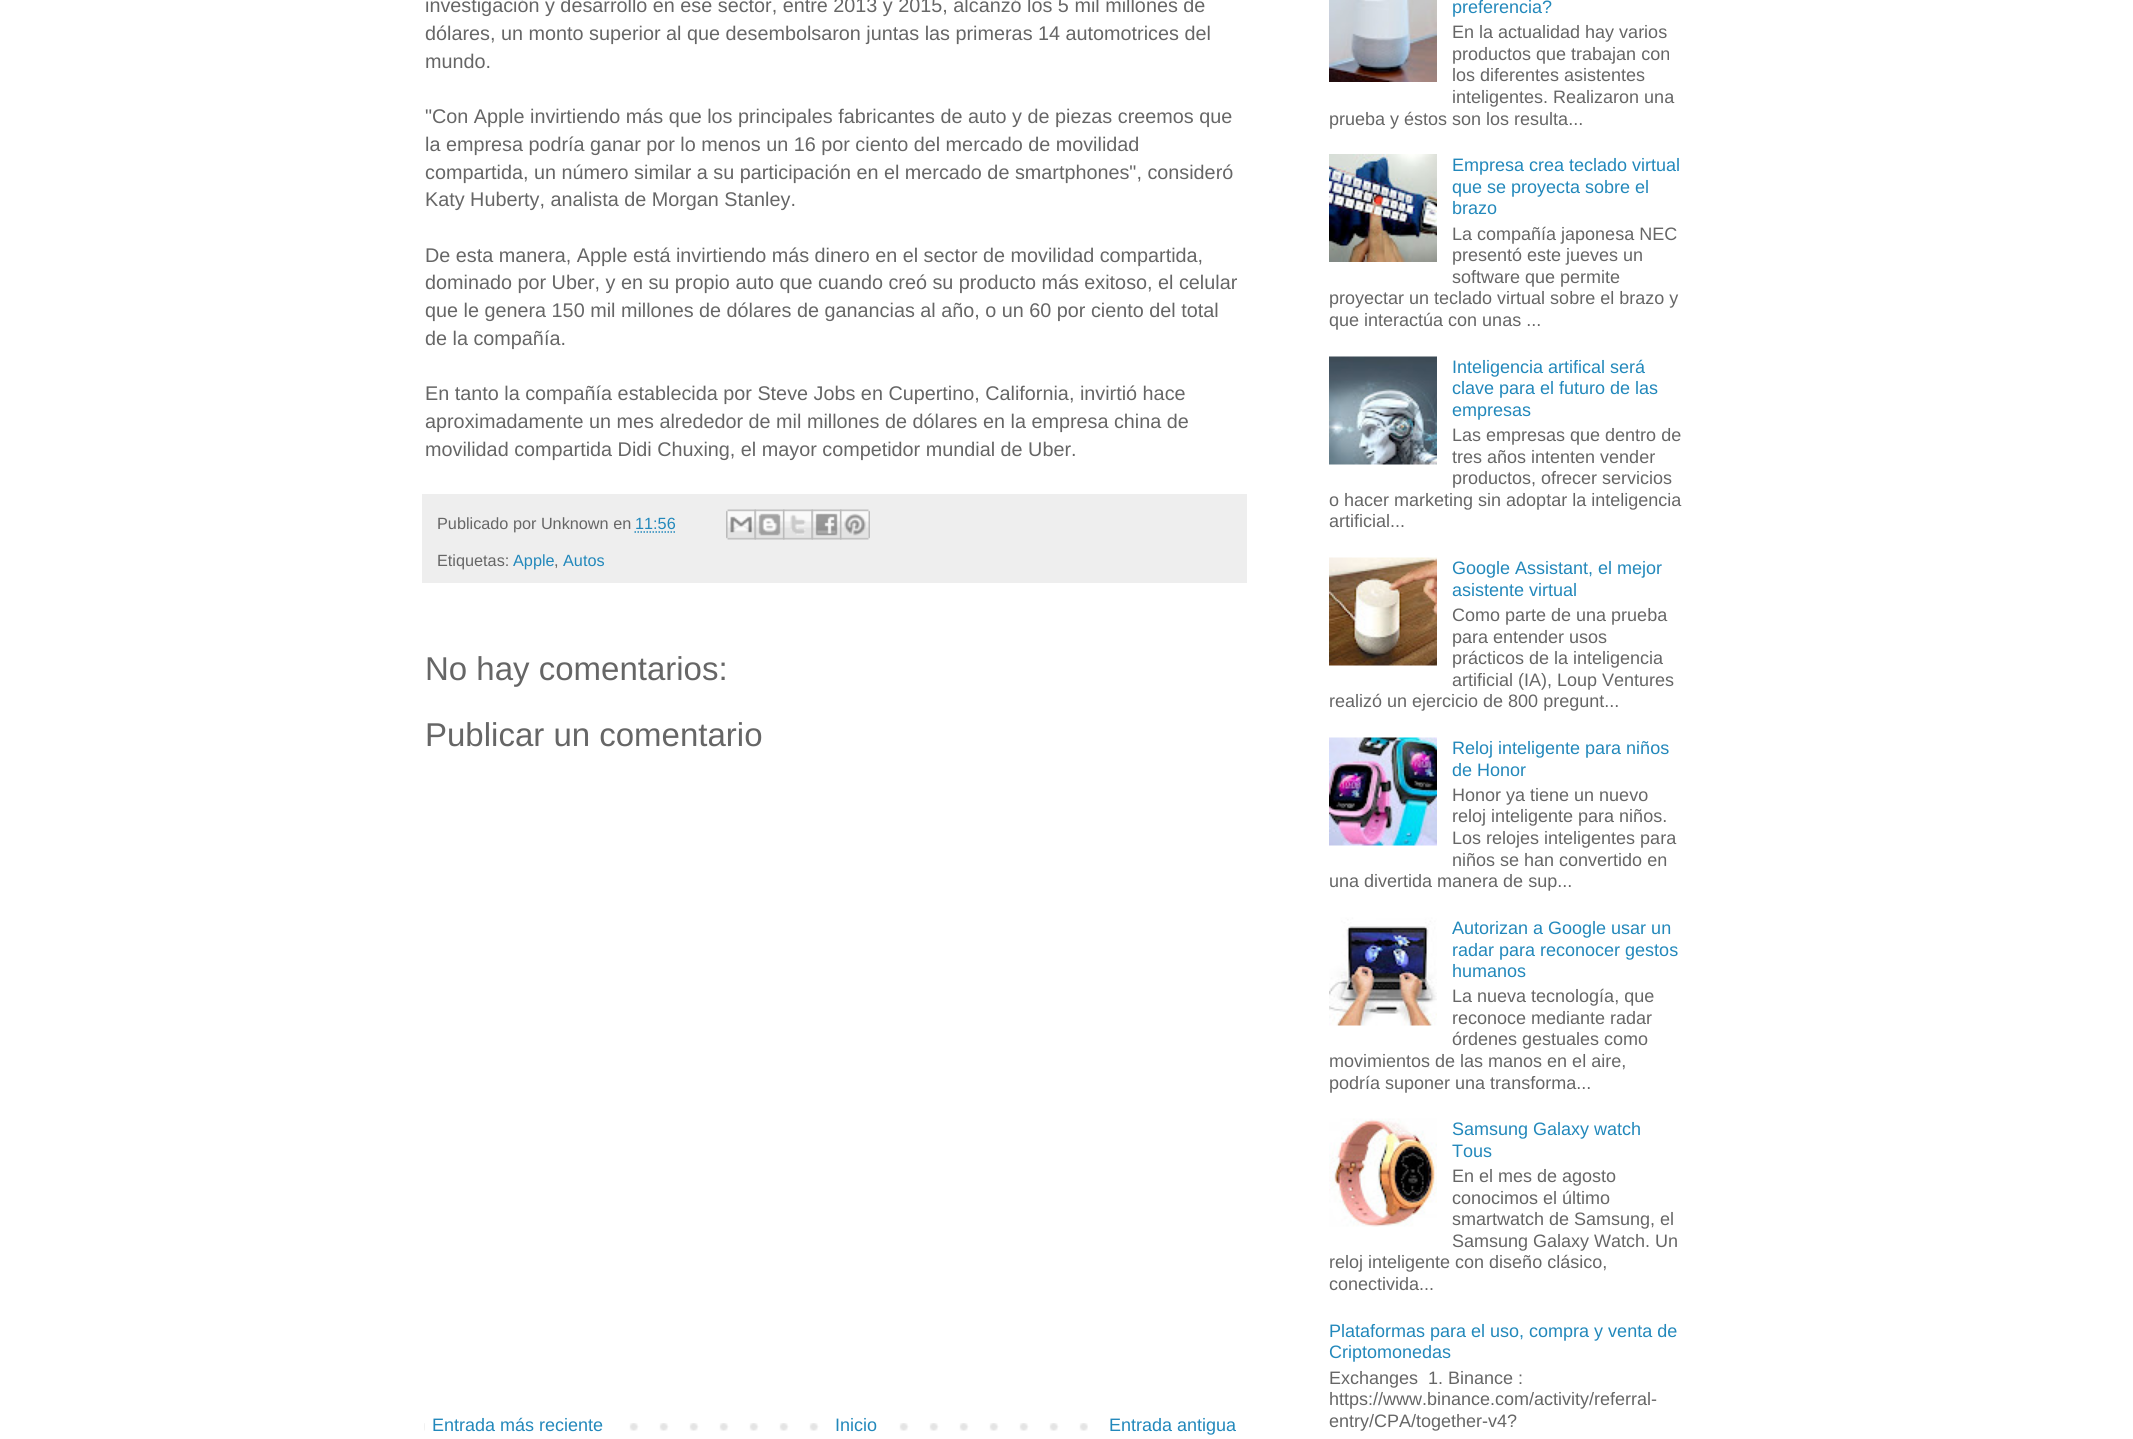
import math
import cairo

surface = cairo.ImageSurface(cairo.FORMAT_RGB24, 2133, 1439)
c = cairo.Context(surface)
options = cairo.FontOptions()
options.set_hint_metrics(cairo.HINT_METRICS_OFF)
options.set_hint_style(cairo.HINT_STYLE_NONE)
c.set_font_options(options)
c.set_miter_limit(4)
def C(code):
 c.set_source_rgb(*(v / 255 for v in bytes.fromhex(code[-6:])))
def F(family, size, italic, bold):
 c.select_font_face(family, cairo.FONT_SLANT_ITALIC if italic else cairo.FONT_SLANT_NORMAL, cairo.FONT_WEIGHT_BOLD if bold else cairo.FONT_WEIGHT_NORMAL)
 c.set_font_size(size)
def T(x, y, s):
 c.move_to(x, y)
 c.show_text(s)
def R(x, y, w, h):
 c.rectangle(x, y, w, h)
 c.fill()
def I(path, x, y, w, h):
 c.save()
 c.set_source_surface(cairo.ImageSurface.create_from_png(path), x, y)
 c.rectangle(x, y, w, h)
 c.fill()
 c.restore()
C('ffffff')
c.paint()
F('Liberation Sans',19.8,0,0)
C('666666')
T(425,12,'investigación y desarrollo en ese sector, entre 2013 y 2015, alcanzó los 5 mil millones de')
T(425,40,'dólares, un monto superior al que desembolsaron juntas las primeras 14 automotrices del')
T(425,68,'mundo.')
T(425,123,'"Con Apple invirtiendo más que los principales fabricantes de auto y de piezas creemos que')
T(425,151,'la empresa podría ganar por lo menos un 16 por ciento del mercado de movilidad')
T(425,179,'compartida, un número similar a su participación en el mercado de smartphones", consideró')
T(425,206,'Katy Huberty, analista de Morgan Stanley.')
T(425,262,'De esta manera, Apple está invirtiendo más dinero en el sector de movilidad compartida,')
T(425,289,'dominado por Uber, y en su propio auto que cuando creó su producto más exitoso, el celular')
T(425,317,'que le genera 150 mil millones de dólares de ganancias al año, o un 60 por ciento del total')
T(425,345,'de la compañía.')
T(425,400,'En tanto la compañía establecida por Steve Jobs en Cupertino, California, invirtió hace')
T(425,428,'aproximadamente un mes alrededor de mil millones de dólares en la empresa china de')
T(425,456,'movilidad compartida Didi Chuxing, el mayor competidor mundial de Uber.')
C('eeeeee')
R(422,494,825,89)
F('Liberation Sans',16.25,0,0)
C('666666')
T(437,529,'Publicado por Unknown en')
C('2288bb')
T(635,529,'11:56')
c.new_path()
c.move_to(634.5,532)
c.line_to(675,532)
c.set_line_width(1.5)
c.set_dash([1.5,1.5])
c.stroke()
I('1.png',726,509,30,31)
I('2.png',754,509,31,31)
I('3.png',783,509,30,31)
I('4.png',811,509,31,31)
I('5.png',840,509,30,31)
C('666666')
T(437,566,'Etiquetas:')
C('2288bb')
T(513,566,'Apple')
C('666666')
T(554,566,',')
C('2288bb')
T(563,566,'Autos')
F('Liberation Sans',33,0,0)
C('666666')
T(425,680,'No hay comentarios:')
T(425,746,'Publicar un comentario')
I('6.png',424,1423,664,8)
C('ffffff')
R(425,1423,184,8)
F('Liberation Sans',18,0,0)
C('2288bb')
T(432,1431,'Entrada más reciente')
C('ffffff')
R(839,1423,40,8)
C('2288bb')
T(835,1431,'Inicio')
T(1109,1431,'Entrada antigua')
I('7.png',1329,0,108,82)
T(1452,13,'preferencia?')
C('666666')
T(1452,38,'En la actualidad hay varios')
T(1452,60,'productos que trabajan con')
T(1452,81,'los diferentes asistentes')
T(1452,103,'inteligentes. Realizaron una')
T(1329,125,'prueba y éstos son los resulta...')
I('8.png',1329,154,108,108)
C('2288bb')
T(1452,171,'Empresa crea teclado virtual')
T(1452,193,'que se proyecta sobre el')
T(1452,214,'brazo')
C('666666')
T(1452,240,'La compañía japonesa NEC')
T(1452,261,'presentó este jueves un')
T(1452,283,'software que permite')
T(1329,304,'proyectar un teclado virtual sobre el brazo y')
T(1329,326,'que interactúa con unas ...')
I('9.png',1329,356,108,109)
C('2288bb')
T(1452,373,'Inteligencia artifical será')
T(1452,394,'clave para el futuro de las')
T(1452,416,'empresas')
C('666666')
T(1452,441,'Las empresas que dentro de')
T(1452,463,'tres años intenten vender')
T(1452,484,'productos, ofrecer servicios')
T(1329,506,'o hacer marketing sin adoptar la inteligencia')
T(1329,527,'artificial...')
I('10.png',1329,557,108,109)
C('2288bb')
T(1452,574,'Google Assistant, el mejor')
T(1452,596,'asistente virtual')
C('666666')
T(1452,621,'Como parte de una prueba')
T(1452,643,'para entender usos')
T(1452,664,'prácticos de la inteligencia')
T(1452,686,'artificial (IA), Loup Ventures')
T(1329,707,'realizó un ejercicio de 800 pregunt...')
I('11.png',1329,737,108,109)
C('2288bb')
T(1452,754,'Reloj inteligente para niños')
T(1452,776,'de Honor')
C('666666')
T(1452,801,'Honor ya tiene un nuevo')
T(1452,822,'reloj inteligente para niños.')
T(1452,844,'Los relojes inteligentes para')
T(1452,866,'niños se han convertido en')
T(1329,887,'una divertida manera de sup...')
I('12.png',1329,917,108,109)
C('2288bb')
T(1452,934,'Autorizan a Google usar un')
T(1452,956,'radar para reconocer gestos')
T(1452,977,'humanos')
C('666666')
T(1452,1002,'La nueva tecnología, que')
T(1452,1024,'reconoce mediante radar')
T(1452,1045,'órdenes gestuales como')
T(1329,1067,'movimientos de las manos en el aire,')
T(1329,1089,'podría suponer una transforma...')
I('13.png',1329,1118,108,109)
C('2288bb')
T(1452,1135,'Samsung Galaxy watch')
T(1452,1157,'Tous')
C('666666')
T(1452,1182,'En el mes de agosto')
T(1452,1204,'conocimos el último')
T(1452,1225,'smartwatch de Samsung, el')
T(1452,1247,'Samsung Galaxy Watch. Un')
T(1329,1268,'reloj inteligente con diseño clásico,')
T(1329,1290,'conectivida...')
C('2288bb')
T(1329,1337,'Plataformas para el uso, compra y venta de')
T(1329,1358,'Criptomonedas')
C('666666')
T(1329,1384,'Exchanges  1. Binance :')
T(1329,1405,'https://www.binance.com/activity/referral-')
T(1329,1427,'entry/CPA/together-v4?')
surface.write_to_png('o.png')
